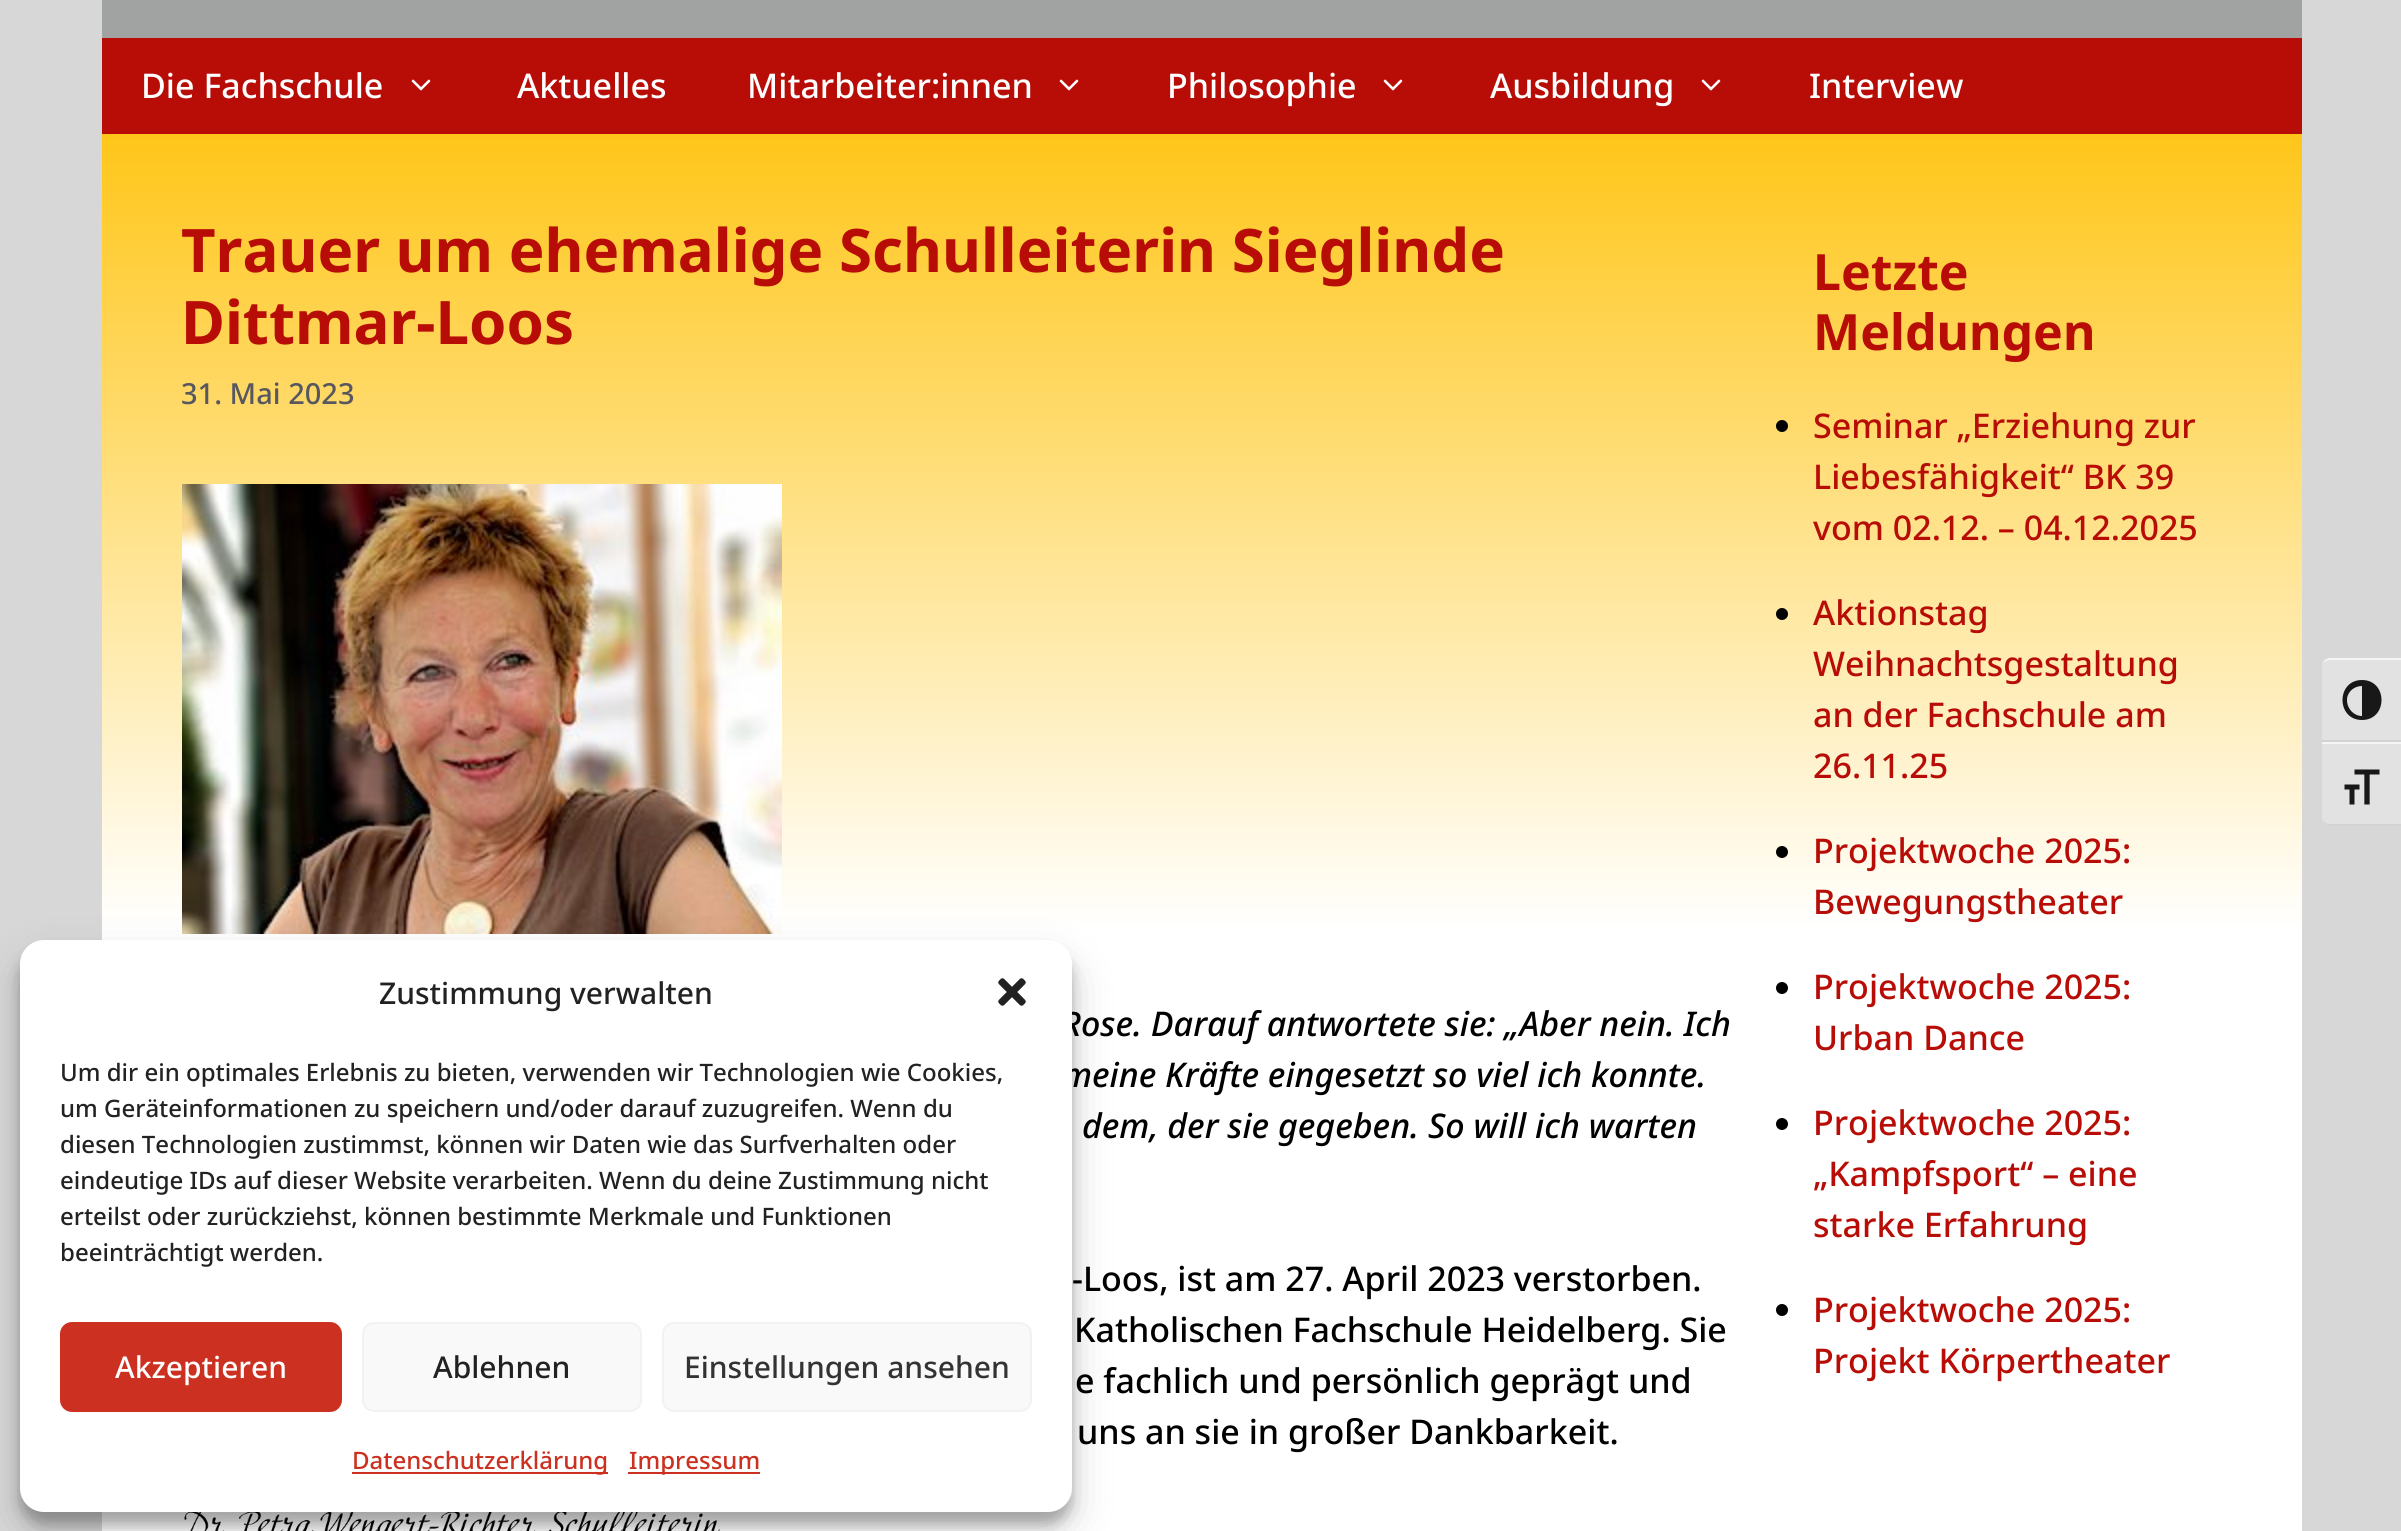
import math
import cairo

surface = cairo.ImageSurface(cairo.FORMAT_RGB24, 2401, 1531)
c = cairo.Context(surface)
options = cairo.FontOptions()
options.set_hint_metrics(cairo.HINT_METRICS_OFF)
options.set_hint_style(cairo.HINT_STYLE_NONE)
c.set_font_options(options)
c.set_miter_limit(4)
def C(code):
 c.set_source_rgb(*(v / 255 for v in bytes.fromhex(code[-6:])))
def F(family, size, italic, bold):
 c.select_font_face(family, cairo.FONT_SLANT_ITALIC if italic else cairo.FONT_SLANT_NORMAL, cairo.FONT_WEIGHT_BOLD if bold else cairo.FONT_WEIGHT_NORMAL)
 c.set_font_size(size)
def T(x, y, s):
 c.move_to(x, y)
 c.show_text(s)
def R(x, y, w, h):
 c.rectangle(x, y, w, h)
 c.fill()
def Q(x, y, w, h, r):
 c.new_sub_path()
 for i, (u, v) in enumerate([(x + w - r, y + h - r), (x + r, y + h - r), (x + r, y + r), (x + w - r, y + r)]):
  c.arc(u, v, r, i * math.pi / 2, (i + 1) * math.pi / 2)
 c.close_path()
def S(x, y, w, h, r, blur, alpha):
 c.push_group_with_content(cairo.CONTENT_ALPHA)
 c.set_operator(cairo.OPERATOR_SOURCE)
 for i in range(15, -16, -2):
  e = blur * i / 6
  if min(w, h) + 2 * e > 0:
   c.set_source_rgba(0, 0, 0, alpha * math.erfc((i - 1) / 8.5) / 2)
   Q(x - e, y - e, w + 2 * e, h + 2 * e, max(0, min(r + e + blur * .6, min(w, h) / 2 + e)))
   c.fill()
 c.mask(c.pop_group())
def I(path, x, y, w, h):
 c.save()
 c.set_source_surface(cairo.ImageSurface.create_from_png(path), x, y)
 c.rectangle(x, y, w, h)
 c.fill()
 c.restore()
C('d7d7d7')
c.paint()
C('a1a3a2')
R(102,0,2200,38)
C('b80d07')
R(102,38,2200,96)
F('Noto Sans Medium',34,0,0)
C('ffffff')
T(141,98,'Die Fachschule')
I('1.png',411,79,20,12)
T(517,98,'Aktuelles')
T(747,98,'Mitarbeiter:innen')
I('1.png',1059,79,20,12)
T(1167,98,'Philosophie')
I('1.png',1383,79,20,12)
T(1490,98,'Ausbildung')
I('1.png',1701,79,20,12)
T(1809,98,'Interview')
gradient = cairo.LinearGradient(1202,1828,1202,134)
gradient.add_color_stop_rgba(.53,1,1,1,1)
gradient.add_color_stop_rgba(1,1,0.776,0.098,1)
c.set_source(gradient)
R(102,134,2200,1397)
F('Noto Sans',60,0,1)
C('b80d07')
T(181,272,'Trauer um ehemalige Schulleiterin Sieglinde')
T(181,344,'Dittmar-Loos')
F('Noto Sans Medium',29,0,0)
C('575760')
T(181,404,'31. Mai 2023')
I('2.png',182,484,600,450)
F('Noto Sans Medium',34,1,0)
C('000000')
T(1061,1036,'Rose. Darauf antwortete sie: „Aber nein. Ich')
T(1062,1087,'meine Kräfte eingesetzt so viel ich konnte.')
T(1082,1138,'dem, der sie gegeben. So will ich warten')
F('Noto Sans Medium',34,0,0)
T(1072,1291,'-Loos, ist am 27. April 2023 verstorben.')
T(1074,1342,'Katholischen Fachschule Heidelberg. Sie')
T(1075,1393,'e fachlich und persönlich geprägt und')
T(1077,1444,'uns an sie in großer Dankbarkeit.')
I('3.png',184,1512,536,19)
F('Noto Sans',50,0,1)
C('b80d07')
T(1813,290,'Letzte')
T(1813,350,'Meldungen')
C('000000')
c.new_path()
c.arc(1782,426,6,0,2 * math.pi)
c.fill()
F('Noto Sans Medium',34,0,0)
C('b80d07')
T(1813,438,'Seminar „Erziehung zur')
T(1813,489,'Liebesfähigkeit“ BK 39')
T(1813,540,'vom 02.12. – 04.12.2025')
C('000000')
c.new_path()
c.arc(1782,614,6,0,2 * math.pi)
c.fill()
C('b80d07')
T(1813,625,'Aktionstag')
T(1813,676,'Weihnachtsgestaltung')
T(1813,727,'an der Fachschule am')
T(1813,778,'26.11.25')
C('000000')
c.new_path()
c.arc(1782,852,6,0,2 * math.pi)
c.fill()
C('b80d07')
T(1813,863,'Projektwoche 2025:')
T(1813,914,'Bewegungstheater')
C('000000')
c.new_path()
c.arc(1782,988,6,0,2 * math.pi)
c.fill()
C('b80d07')
T(1813,999,'Projektwoche 2025:')
T(1813,1050,'Urban Dance')
C('000000')
c.new_path()
c.arc(1782,1124,6,0,2 * math.pi)
c.fill()
C('b80d07')
T(1813,1135,'Projektwoche 2025:')
T(1813,1186,'„Kampfsport“ – eine')
T(1813,1237,'starke Erfahrung')
C('000000')
c.new_path()
c.arc(1782,1310,6,0,2 * math.pi)
c.fill()
C('b80d07')
T(1813,1322,'Projektwoche 2025:')
T(1813,1373,'Projekt Körpertheater')
C('e2e2e2')
c.new_path()
c.move_to(2330,658)
c.line_to(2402,658)
c.line_to(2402,742)
c.line_to(2322,742)
c.line_to(2322,666)
c.curve_to(2322,661.5,2325.5,658,2330,658)
c.close_path()
c.fill()
C('f5f5f5')
c.new_path()
c.move_to(2330,660)
c.line_to(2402,660)
c.line_to(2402,658)
c.line_to(2330,658)
c.curve_to(2326,658,2322,662,2322,666)
c.curve_to(2322,663,2326,660,2330,660)
c.close_path()
c.fill()
C('d2d2d2')
R(2322,740,79,2)
C('181818')
c.new_path()
c.move_to(2362,680)
c.curve_to(2336,680,2336,720,2362,720)
c.curve_to(2388,720,2388,680,2362,680)
c.close_path()
c.move_to(2347,700)
c.curve_to(2347,692,2354,686,2362,686)
c.line_to(2362,716)
c.curve_to(2354,716,2347,709,2347,700)
c.close_path()
c.fill()
C('e2e2e2')
c.new_path()
c.move_to(2322,742)
c.line_to(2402,742)
c.line_to(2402,826)
c.line_to(2330,826)
c.curve_to(2325.5,826,2322,822.5,2322,818)
c.close_path()
c.fill()
C('f5f5f5')
R(2322,742,79,2)
C('d2d2d2')
c.new_path()
c.move_to(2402,826)
c.line_to(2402,824)
c.line_to(2330,824)
c.curve_to(2326,824,2322,821,2322,818)
c.curve_to(2322,822,2326,826,2330,826)
c.close_path()
c.fill()
I('4.png',2344,769,36,36)
C('000000')
S(20,952,1052,572,24,6,.23)
S(20,960,1052,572,24,20,.19)
C('ffffff')
Q(20,940,1052,572,24)
c.fill()
F('Noto Sans Medium',30,0,0)
C('222222')
T(379,1004,'Zustimmung verwalten')
I('5.png',998,978,28,28)
F('Noto Sans Medium',24,0,0)
T(60,1081,'Um dir ein optimales Erlebnis zu bieten, verwenden wir Technologien wie Cookies,')
T(60,1117,'um Geräteinformationen zu speichern und/oder darauf zuzugreifen. Wenn du')
T(60,1153,'diesen Technologien zustimmst, können wir Daten wie das Surfverhalten oder')
T(60,1189,'eindeutige IDs auf dieser Website verarbeiten. Wenn du deine Zustimmung nicht')
T(60,1225,'erteilst oder zurückziehst, können bestimmte Merkmale und Funktionen')
T(60,1261,'beeinträchtigt werden.')
C('cb3020')
Q(61,1323,280,88,11)
c.fill_preserve()
c.stroke()
F('Noto Sans Medium',30,0,0)
C('ffffff')
T(115,1378,'Akzeptieren')
C('f9f9f9')
Q(363,1323,278,88,11)
c.fill_preserve()
C('f2f2f2')
c.stroke()
C('222222')
T(433,1378,'Ablehnen')
C('f9f9f9')
Q(663,1323,368,88,11)
c.fill_preserve()
C('f2f2f2')
c.stroke()
C('333333')
T(684,1378,'Einstellungen ansehen')
C('cb3020')
R(352,1472,256,2)
F('Noto Sans Medium',24,0,0)
T(352,1469,'Datenschutzerklärung')
R(628,1472,132,2)
T(629,1469,'Impressum')
surface.write_to_png('o.png')
